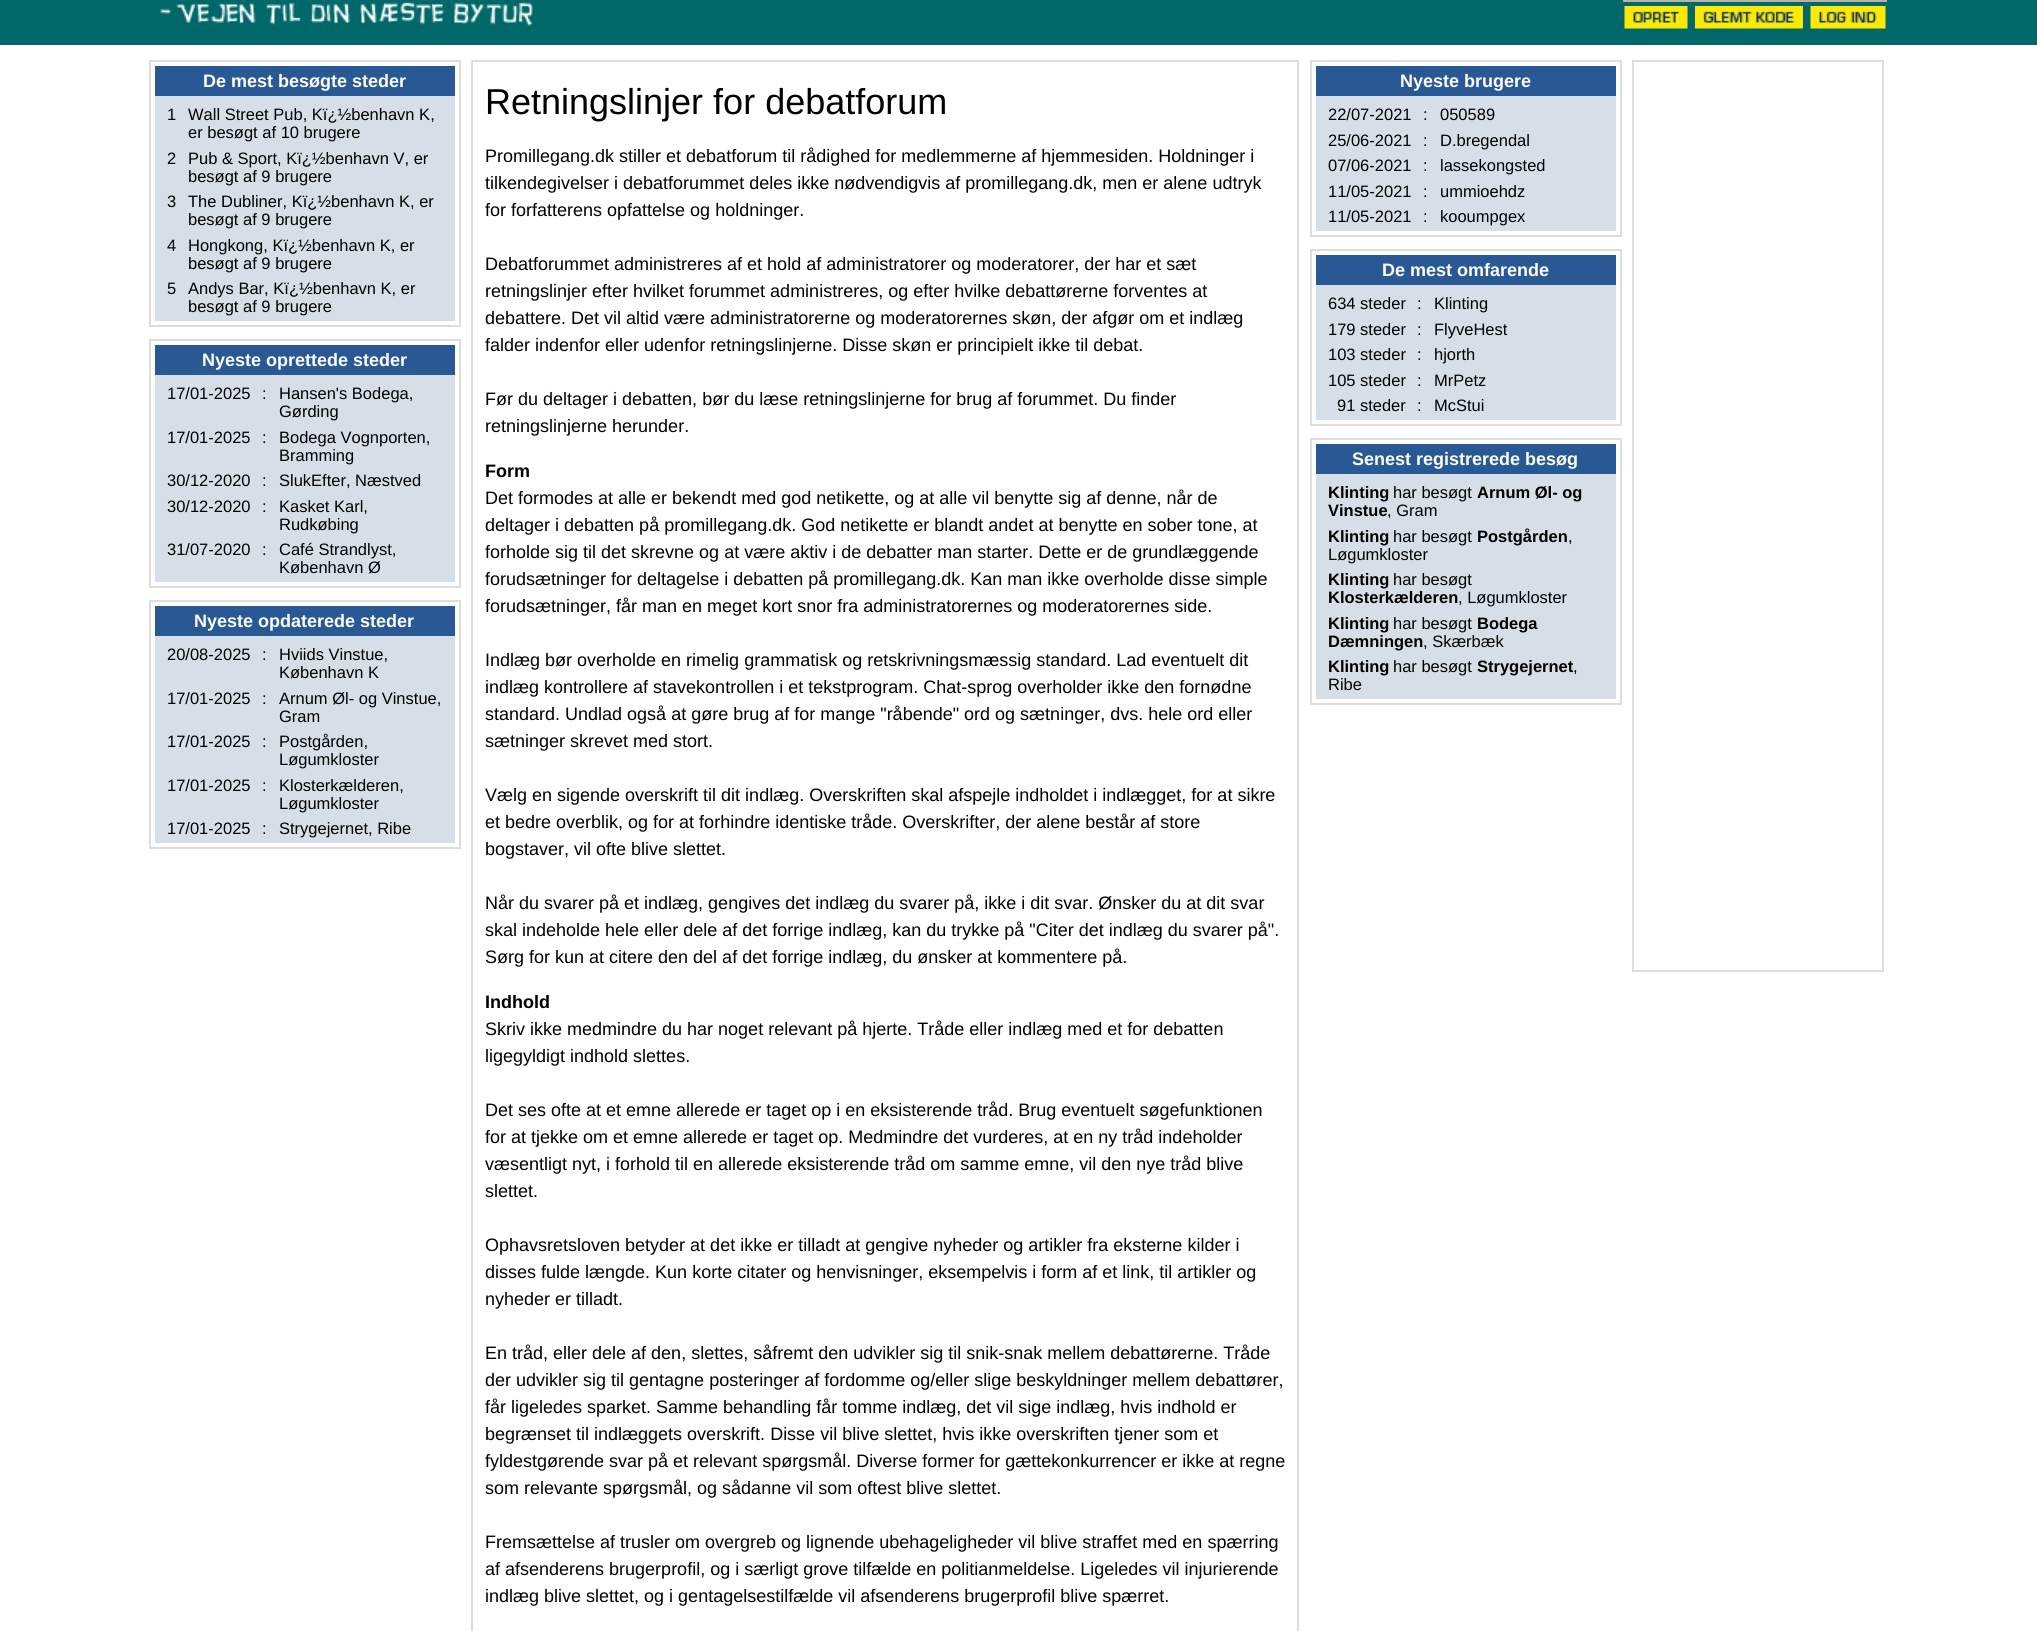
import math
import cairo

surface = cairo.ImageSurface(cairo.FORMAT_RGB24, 2037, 1631)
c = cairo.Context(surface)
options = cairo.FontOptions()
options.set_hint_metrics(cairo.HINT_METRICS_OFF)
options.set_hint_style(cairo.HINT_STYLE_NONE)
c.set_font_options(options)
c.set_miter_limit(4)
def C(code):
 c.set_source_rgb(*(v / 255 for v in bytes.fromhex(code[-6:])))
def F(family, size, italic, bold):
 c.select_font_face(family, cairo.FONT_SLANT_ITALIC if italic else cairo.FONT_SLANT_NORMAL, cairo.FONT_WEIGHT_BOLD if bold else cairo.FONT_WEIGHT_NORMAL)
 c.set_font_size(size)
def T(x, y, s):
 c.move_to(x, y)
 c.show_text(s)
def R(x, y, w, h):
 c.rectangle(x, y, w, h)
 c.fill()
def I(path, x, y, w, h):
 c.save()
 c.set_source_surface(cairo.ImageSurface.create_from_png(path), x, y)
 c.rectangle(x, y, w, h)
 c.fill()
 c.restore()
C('ffffff')
c.paint()
C('006868')
R(0,0,2037,45)
I('1.png',160,2,373,24)
c.rectangle(1624,-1,262,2)
C('b8b4a4')
c.stroke()
I('2.png',1624,6,64,23)
I('3.png',1695,6,108,23)
I('4.png',1810,6,76,23)
c.rectangle(150,61,310,265)
C('dddddd')
c.stroke()
C('d6dfe7')
R(155,96,300,225)
C('295994')
R(155,66,300,30)
F('Liberation Sans',18,0,1)
C('ffffff')
T(203,87,'De mest besøgte steder')
F('Liberation Sans',16.5,0,0)
C('000000')
T(167,120,'1')
T(188,120,'Wall Street Pub, Kï¿½benhavn K,')
T(188,138,'er besøgt af 10 brugere')
T(167,164,'2')
T(188,164,'Pub & Sport, Kï¿½benhavn V, er')
T(188,182,'besøgt af 9 brugere')
T(167,207,'3')
T(188,207,'The Dubliner, Kï¿½benhavn K, er')
T(188,225,'besøgt af 9 brugere')
T(167,251,'4')
T(188,251,'Hongkong, Kï¿½benhavn K, er')
T(188,269,'besøgt af 9 brugere')
T(167,294,'5')
T(188,294,'Andys Bar, Kï¿½benhavn K, er')
T(188,312,'besøgt af 9 brugere')
c.rectangle(150,340,310,247)
C('dddddd')
c.stroke()
C('d6dfe7')
R(155,375,300,207)
C('295994')
R(155,345,300,30)
F('Liberation Sans',18,0,1)
C('ffffff')
T(202,366,'Nyeste oprettede steder')
F('Liberation Sans',16.5,0,0)
C('000000')
T(167,399,'17/01-2025')
T(262,399,':')
T(279,399,'Hansen\'s Bodega,')
T(279,417,'Gørding')
T(167,443,'17/01-2025')
T(262,443,':')
T(279,443,'Bodega Vognporten,')
T(279,461,'Bramming')
T(167,486,'30/12-2020')
T(262,486,':')
T(279,486,'SlukEfter, Næstved')
T(167,512,'30/12-2020')
T(262,512,':')
T(279,512,'Kasket Karl,')
T(279,530,'Rudkøbing')
T(167,555,'31/07-2020')
T(262,555,':')
T(279,555,'Café Strandlyst,')
T(279,573,'København Ø')
c.rectangle(150,601,310,247)
C('dddddd')
c.stroke()
C('d6dfe7')
R(155,636,300,207)
C('295994')
R(155,606,300,30)
F('Liberation Sans',18,0,1)
C('ffffff')
T(194,627,'Nyeste opdaterede steder')
F('Liberation Sans',16.5,0,0)
C('000000')
T(167,660,'20/08-2025')
T(262,660,':')
T(279,660,'Hviids Vinstue,')
T(279,678,'København K')
T(167,704,'17/01-2025')
T(262,704,':')
T(279,704,'Arnum Øl- og Vinstue,')
T(279,722,'Gram')
T(167,747,'17/01-2025')
T(262,747,':')
T(279,747,'Postgården,')
T(279,765,'Løgumkloster')
T(167,791,'17/01-2025')
T(262,791,':')
T(279,791,'Klosterkælderen,')
T(279,809,'Løgumkloster')
T(167,834,'17/01-2025')
T(262,834,':')
T(279,834,'Strygejernet, Ribe')
c.rectangle(472,61,826,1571)
C('dddddd')
c.stroke()
F('Liberation Sans',36,0,0)
C('000000')
T(485,114,'Retningslinjer for debatforum')
F('Liberation Sans',18,0,0)
T(485,162,'Promillegang.dk stiller et debatforum til rådighed for medlemmerne af hjemmesiden. Holdninger i')
T(485,189,'tilkendegivelser i debatforummet deles ikke nødvendigvis af promillegang.dk, men er alene udtryk')
T(485,216,'for forfatterens opfattelse og holdninger.')
T(485,270,'Debatforummet administreres af et hold af administratorer og moderatorer, der har et sæt')
T(485,297,'retningslinjer efter hvilket forummet administreres, og efter hvilke debattørerne forventes at')
T(485,324,'debattere. Det vil altid være administratorerne og moderatorernes skøn, der afgør om et indlæg')
T(485,351,'falder indenfor eller udenfor retningslinjerne. Disse skøn er principielt ikke til debat.')
T(485,405,'Før du deltager i debatten, bør du læse retningslinjerne for brug af forummet. Du finder')
T(485,432,'retningslinjerne herunder.')
F('Liberation Sans',18,0,1)
T(485,477,'Form')
F('Liberation Sans',18,0,0)
T(485,504,'Det formodes at alle er bekendt med god netikette, og at alle vil benytte sig af denne, når de')
T(485,531,'deltager i debatten på promillegang.dk. God netikette er blandt andet at benytte en sober tone, at')
T(485,558,'forholde sig til det skrevne og at være aktiv i de debatter man starter. Dette er de grundlæggende')
T(485,585,'forudsætninger for deltagelse i debatten på promillegang.dk. Kan man ikke overholde disse simple')
T(485,612,'forudsætninger, får man en meget kort snor fra administratorernes og moderatorernes side.')
T(485,666,'Indlæg bør overholde en rimelig grammatisk og retskrivningsmæssig standard. Lad eventuelt dit')
T(485,693,'indlæg kontrollere af stavekontrollen i et tekstprogram. Chat-sprog overholder ikke den fornødne')
T(485,720,'standard. Undlad også at gøre brug af for mange "råbende" ord og sætninger, dvs. hele ord eller')
T(485,747,'sætninger skrevet med stort.')
T(485,801,'Vælg en sigende overskrift til dit indlæg. Overskriften skal afspejle indholdet i indlægget, for at sikre')
T(485,828,'et bedre overblik, og for at forhindre identiske tråde. Overskrifter, der alene består af store')
T(485,855,'bogstaver, vil ofte blive slettet.')
T(485,909,'Når du svarer på et indlæg, gengives det indlæg du svarer på, ikke i dit svar. Ønsker du at dit svar')
T(485,936,'skal indeholde hele eller dele af det forrige indlæg, kan du trykke på "Citer det indlæg du svarer på".')
T(485,963,'Sørg for kun at citere den del af det forrige indlæg, du ønsker at kommentere på.')
F('Liberation Sans',18,0,1)
T(485,1008,'Indhold')
F('Liberation Sans',18,0,0)
T(485,1035,'Skriv ikke medmindre du har noget relevant på hjerte. Tråde eller indlæg med et for debatten')
T(485,1062,'ligegyldigt indhold slettes.')
T(485,1116,'Det ses ofte at et emne allerede er taget op i en eksisterende tråd. Brug eventuelt søgefunktionen')
T(485,1143,'for at tjekke om et emne allerede er taget op. Medmindre det vurderes, at en ny tråd indeholder')
T(485,1170,'væsentligt nyt, i forhold til en allerede eksisterende tråd om samme emne, vil den nye tråd blive')
T(485,1197,'slettet.')
T(485,1251,'Ophavsretsloven betyder at det ikke er tilladt at gengive nyheder og artikler fra eksterne kilder i')
T(485,1278,'disses fulde længde. Kun korte citater og henvisninger, eksempelvis i form af et link, til artikler og')
T(485,1305,'nyheder er tilladt.')
T(485,1359,'En tråd, eller dele af den, slettes, såfremt den udvikler sig til snik-snak mellem debattørerne. Tråde')
T(485,1386,'der udvikler sig til gentagne posteringer af fordomme og/eller slige beskyldninger mellem debattører,')
T(485,1413,'får ligeledes sparket. Samme behandling får tomme indlæg, det vil sige indlæg, hvis indhold er')
T(485,1440,'begrænset til indlæggets overskrift. Disse vil blive slettet, hvis ikke overskriften tjener som et')
T(485,1467,'fyldestgørende svar på et relevant spørgsmål. Diverse former for gættekonkurrencer er ikke at regne')
T(485,1494,'som relevante spørgsmål, og sådanne vil som oftest blive slettet.')
T(485,1548,'Fremsættelse af trusler om overgreb og lignende ubehageligheder vil blive straffet med en spærring')
T(485,1575,'af afsenderens brugerprofil, og i særligt grove tilfælde en politianmeldelse. Ligeledes vil injurierende')
T(485,1602,'indlæg blive slettet, og i gentagelsestilfælde vil afsenderens brugerprofil blive spærret.')
c.rectangle(1311,61,310,175)
C('dddddd')
c.stroke()
C('d6dfe7')
R(1316,96,300,135)
C('295994')
R(1316,66,300,30)
F('Liberation Sans',18,0,1)
C('ffffff')
T(1400,87,'Nyeste brugere')
F('Liberation Sans',16.5,0,0)
C('000000')
T(1328,120,'22/07-2021')
T(1423,120,':')
T(1440,120,'050589')
T(1328,146,'25/06-2021')
T(1423,146,':')
T(1440,146,'D.bregendal')
T(1328,171,'07/06-2021')
T(1423,171,':')
T(1440,171,'lassekongsted')
T(1328,197,'11/05-2021')
T(1423,197,':')
T(1440,197,'ummioehdz')
T(1328,222,'11/05-2021')
T(1423,222,':')
T(1440,222,'kooumpgex')
c.rectangle(1311,250,310,175)
C('dddddd')
c.stroke()
C('d6dfe7')
R(1316,285,300,135)
C('295994')
R(1316,255,300,30)
F('Liberation Sans',18,0,1)
C('ffffff')
T(1382,276,'De mest omfarende')
F('Liberation Sans',16.5,0,0)
C('000000')
T(1328,309,'634 steder')
T(1417,309,':')
T(1434,309,'Klinting')
T(1328,335,'179 steder')
T(1417,335,':')
T(1434,335,'FlyveHest')
T(1328,360,'103 steder')
T(1417,360,':')
T(1434,360,'hjorth')
T(1328,386,'105 steder')
T(1417,386,':')
T(1434,386,'MrPetz')
T(1337,411,'91 steder')
T(1417,411,':')
T(1434,411,'McStui')
c.rectangle(1311,439,310,265)
C('dddddd')
c.stroke()
C('d6dfe7')
R(1316,474,300,225)
C('295994')
R(1316,444,300,30)
F('Liberation Sans',18,0,1)
C('ffffff')
T(1352,465,'Senest registrerede besøg')
F('Liberation Sans',16.5,0,1)
C('000000')
T(1328,498,'Klinting')
F('Liberation Sans',16.5,0,0)
T(1393,498,'har besøgt')
F('Liberation Sans',16.5,0,1)
T(1477,498,'Arnum Øl- og')
T(1328,516,'Vinstue')
F('Liberation Sans',16.5,0,0)
T(1387,516,', Gram')
F('Liberation Sans',16.5,0,1)
T(1328,542,'Klinting')
F('Liberation Sans',16.5,0,0)
T(1393,542,'har besøgt')
F('Liberation Sans',16.5,0,1)
T(1477,542,'Postgården')
F('Liberation Sans',16.5,0,0)
T(1568,542,',')
T(1328,560,'Løgumkloster')
F('Liberation Sans',16.5,0,1)
T(1328,585,'Klinting')
F('Liberation Sans',16.5,0,0)
T(1393,585,'har besøgt')
F('Liberation Sans',16.5,0,1)
T(1328,603,'Klosterkælderen')
F('Liberation Sans',16.5,0,0)
T(1458,603,', Løgumkloster')
F('Liberation Sans',16.5,0,1)
T(1328,629,'Klinting')
F('Liberation Sans',16.5,0,0)
T(1393,629,'har besøgt')
F('Liberation Sans',16.5,0,1)
T(1477,629,'Bodega')
T(1328,647,'Dæmningen')
F('Liberation Sans',16.5,0,0)
T(1423,647,', Skærbæk')
F('Liberation Sans',16.5,0,1)
T(1328,672,'Klinting')
F('Liberation Sans',16.5,0,0)
T(1393,672,'har besøgt')
F('Liberation Sans',16.5,0,1)
T(1477,672,'Strygejernet')
F('Liberation Sans',16.5,0,0)
T(1573,672,',')
T(1328,690,'Ribe')
c.rectangle(1633,61,250,910)
C('dddddd')
c.stroke()
surface.write_to_png('o.png')
